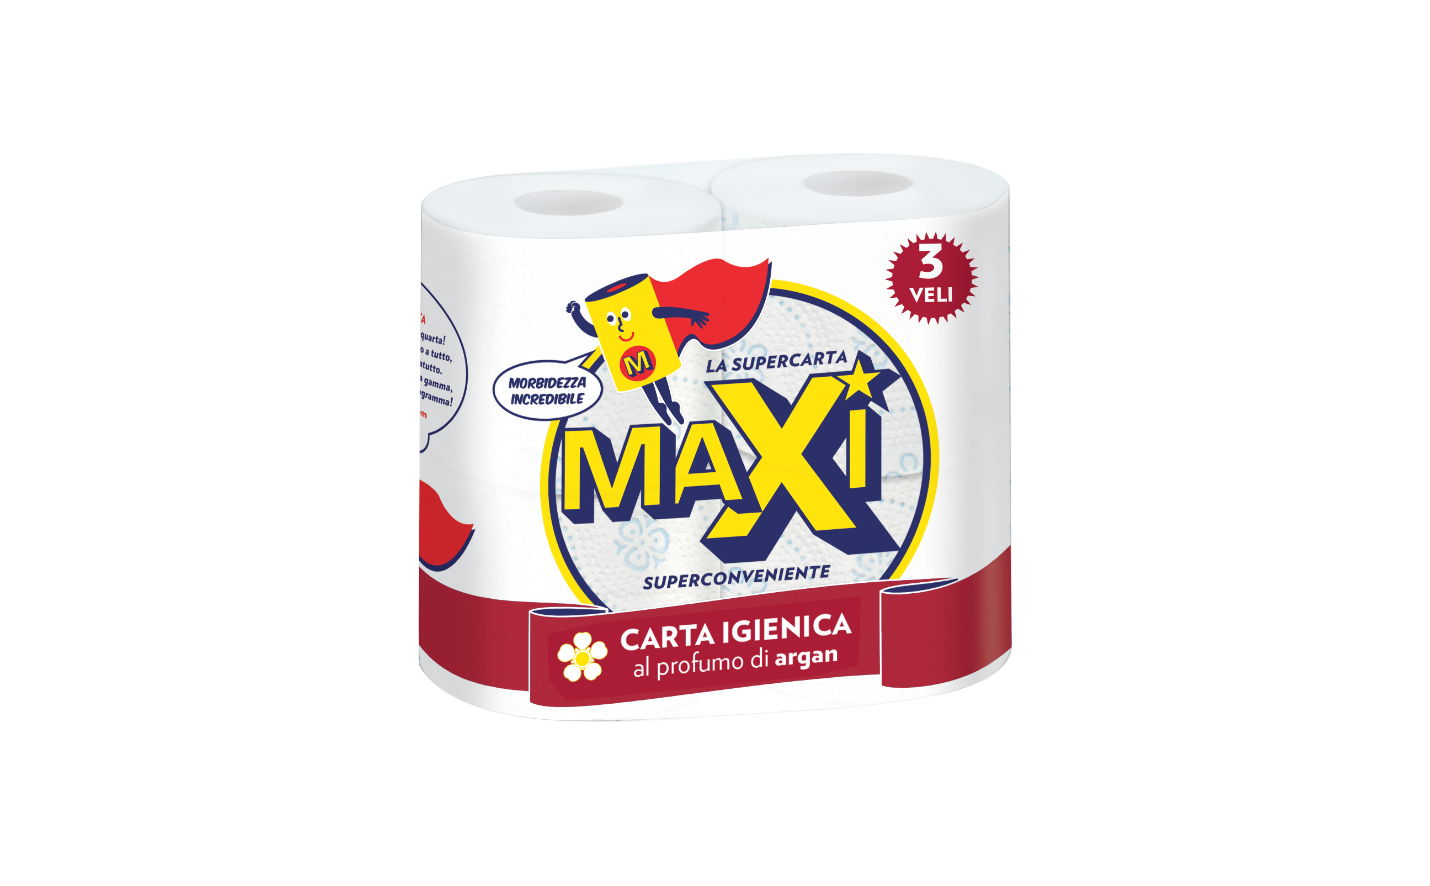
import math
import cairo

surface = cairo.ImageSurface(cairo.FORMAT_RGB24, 1430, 886)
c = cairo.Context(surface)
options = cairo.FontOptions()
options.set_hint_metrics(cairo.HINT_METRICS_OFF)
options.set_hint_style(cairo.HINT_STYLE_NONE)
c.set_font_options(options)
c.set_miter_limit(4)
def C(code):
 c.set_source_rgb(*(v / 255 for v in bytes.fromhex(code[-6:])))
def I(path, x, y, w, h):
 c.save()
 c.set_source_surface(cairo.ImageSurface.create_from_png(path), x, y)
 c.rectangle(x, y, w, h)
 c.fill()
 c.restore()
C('ffffff')
c.paint()
I('1.png',418,153,595,569)
surface.write_to_png('o.png')
